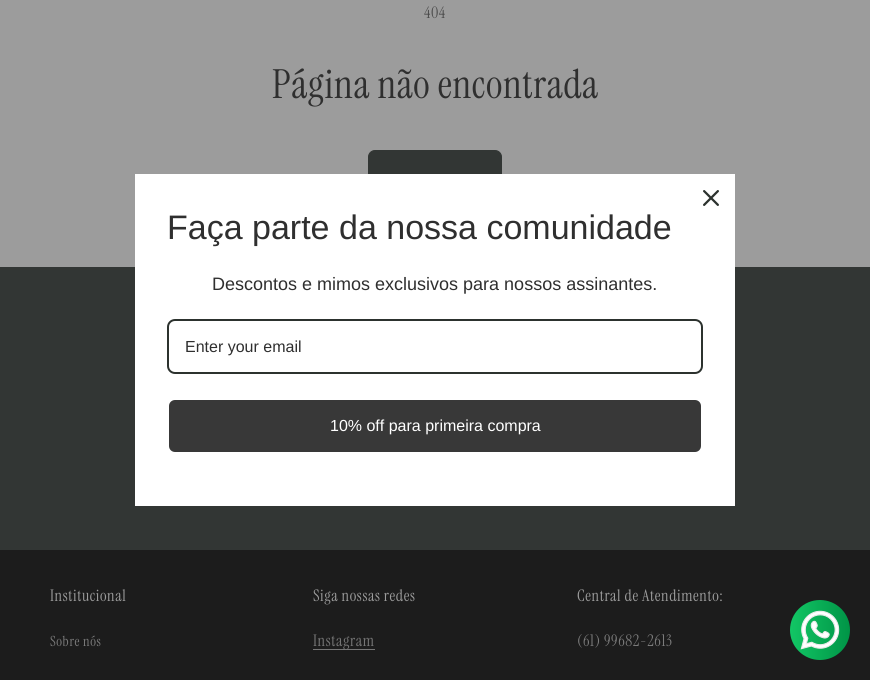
import math
import cairo

surface = cairo.ImageSurface(cairo.FORMAT_RGB24, 870, 680)
c = cairo.Context(surface)
options = cairo.FontOptions()
options.set_hint_metrics(cairo.HINT_METRICS_OFF)
options.set_hint_style(cairo.HINT_STYLE_NONE)
c.set_font_options(options)
c.set_miter_limit(4)
def C(code):
 c.set_source_rgb(*(v / 255 for v in bytes.fromhex(code[-6:])))
def F(family, size, italic, bold):
 c.select_font_face(family, cairo.FONT_SLANT_ITALIC if italic else cairo.FONT_SLANT_NORMAL, cairo.FONT_WEIGHT_BOLD if bold else cairo.FONT_WEIGHT_NORMAL)
 c.set_font_size(size)
def T(x, y, s):
 c.move_to(x, y)
 c.show_text(s)
def L(x, y, s, letter, word):
 c.move_to(x, y)
 for ch in s:
  c.show_text(ch)
  c.rel_move_to(letter + word * (ch == ' '), 0)
def R(x, y, w, h):
 c.rectangle(x, y, w, h)
 c.fill()
def Q(x, y, w, h, r):
 c.new_sub_path()
 for i, (u, v) in enumerate([(x + w - r, y + h - r), (x + r, y + h - r), (x + r, y + r), (x + w - r, y + r)]):
  c.arc(u, v, r, i * math.pi / 2, (i + 1) * math.pi / 2)
 c.close_path()
def I(path, x, y, w, h):
 c.save()
 c.set_source_surface(cairo.ImageSurface.create_from_png(path), x, y)
 c.rectangle(x, y, w, h)
 c.fill()
 c.restore()
C('9c9c9c')
c.paint()
F('Instrument Serif',16,0,0)
C('4a4a4a')
L(424,18,'404',.6,0)
F('Instrument Serif',40,0,0)
C('2f2f2f')
L(272,98,'Página não encontrada',.6,0)
C('323634')
Q(368.5,150.5,133,46,6.5)
c.fill_preserve()
c.set_line_width(1)
c.stroke()
R(0,267,870,283)
C('ffffff')
R(135,174,600,332)
I('1.png',703,190,16,16)
F('Liberation Sans',34,0,0)
C('2f2f2f')
T(167,239,'Faça parte da nossa comunidade')
F('Liberation Sans',18,0,0)
T(212,290,'Descontos e mimos exclusivos para nossos assinantes.')
Q(168,320,534,53,7)
C('2c322e')
c.set_line_width(2)
c.stroke()
F('Liberation Sans',16,0,0)
C('2f2f2f')
T(185,352,'Enter your email')
C('383838')
Q(168,399,534,54,7)
c.fill_preserve()
C('ffffff')
c.stroke()
T(330,431,'10% off para primeira compra')
C('1c1c1c')
R(0,550,870,130)
F('Instrument Serif',16,0,0)
C('9c9c9c')
L(50,601,'Institucional',.6,0)
F('Instrument Serif',14,0,0)
C('7c7c7c')
L(50,646,'Sobre nós',.6,0)
F('Instrument Serif',16,0,0)
C('9c9c9c')
L(313,601,'Siga nossas redes',.6,0)
C('767676')
R(313,649,62,1)
L(313,646,'Instagram',.6,0)
C('9c9c9c')
L(577,601,'Central de Atendimento:',.6,0)
C('7c7c7c')
L(577,646,'(61) 99682-2613',.6,0)
gradient = cairo.LinearGradient(790,630,850,630)
gradient.add_color_stop_rgba(.01,0.071,0.776,0.396,1)
gradient.add_color_stop_rgba(1,0,0.58,0.275,1)
c.set_source(gradient)
c.new_path()
c.arc(820,630,30,0,2 * math.pi)
c.fill()
I('2.png',800,610,40,40)
surface.write_to_png('o.png')
